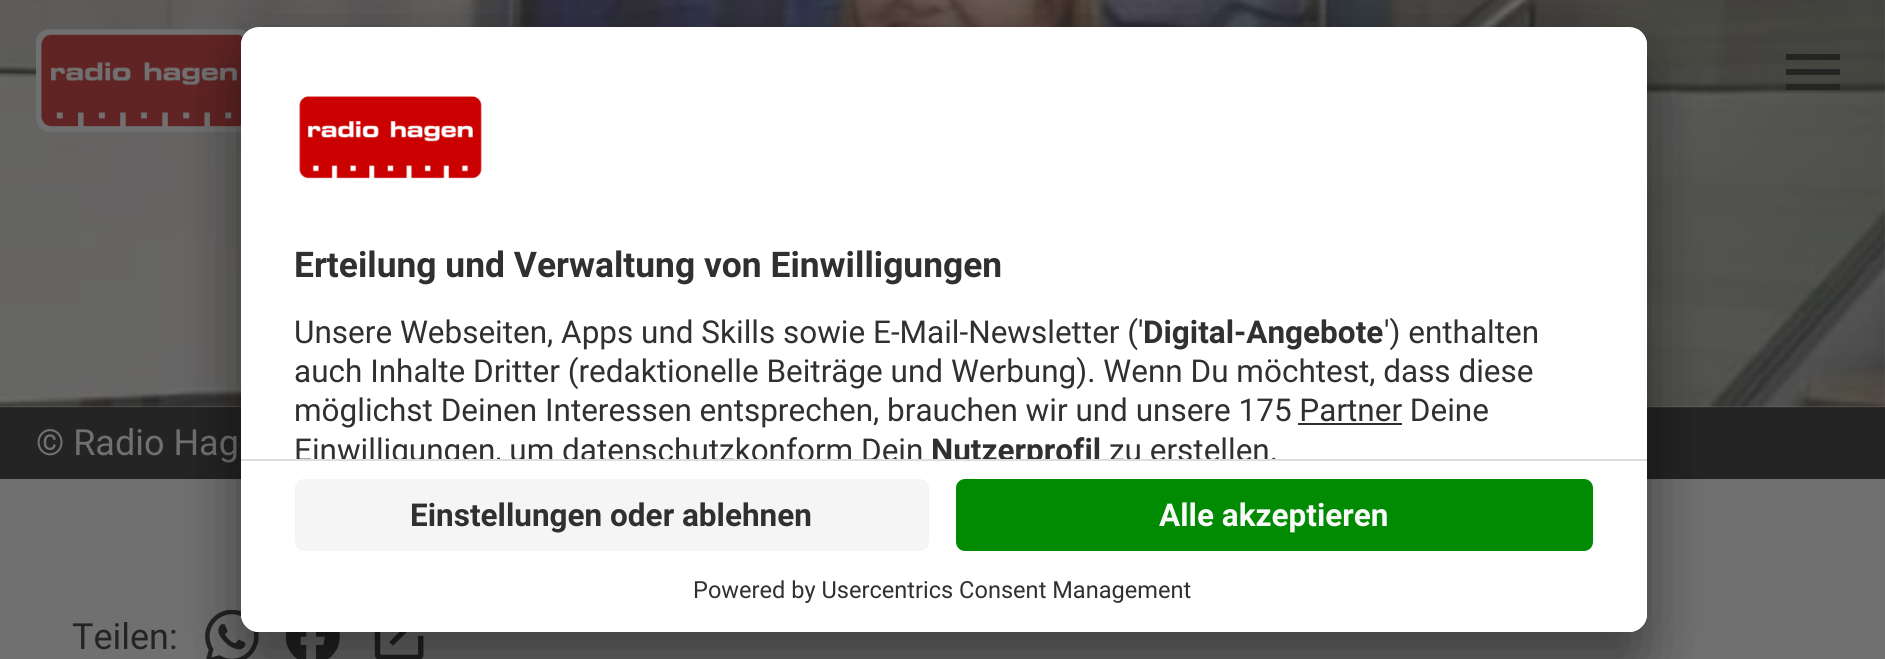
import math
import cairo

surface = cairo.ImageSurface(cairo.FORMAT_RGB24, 1885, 659)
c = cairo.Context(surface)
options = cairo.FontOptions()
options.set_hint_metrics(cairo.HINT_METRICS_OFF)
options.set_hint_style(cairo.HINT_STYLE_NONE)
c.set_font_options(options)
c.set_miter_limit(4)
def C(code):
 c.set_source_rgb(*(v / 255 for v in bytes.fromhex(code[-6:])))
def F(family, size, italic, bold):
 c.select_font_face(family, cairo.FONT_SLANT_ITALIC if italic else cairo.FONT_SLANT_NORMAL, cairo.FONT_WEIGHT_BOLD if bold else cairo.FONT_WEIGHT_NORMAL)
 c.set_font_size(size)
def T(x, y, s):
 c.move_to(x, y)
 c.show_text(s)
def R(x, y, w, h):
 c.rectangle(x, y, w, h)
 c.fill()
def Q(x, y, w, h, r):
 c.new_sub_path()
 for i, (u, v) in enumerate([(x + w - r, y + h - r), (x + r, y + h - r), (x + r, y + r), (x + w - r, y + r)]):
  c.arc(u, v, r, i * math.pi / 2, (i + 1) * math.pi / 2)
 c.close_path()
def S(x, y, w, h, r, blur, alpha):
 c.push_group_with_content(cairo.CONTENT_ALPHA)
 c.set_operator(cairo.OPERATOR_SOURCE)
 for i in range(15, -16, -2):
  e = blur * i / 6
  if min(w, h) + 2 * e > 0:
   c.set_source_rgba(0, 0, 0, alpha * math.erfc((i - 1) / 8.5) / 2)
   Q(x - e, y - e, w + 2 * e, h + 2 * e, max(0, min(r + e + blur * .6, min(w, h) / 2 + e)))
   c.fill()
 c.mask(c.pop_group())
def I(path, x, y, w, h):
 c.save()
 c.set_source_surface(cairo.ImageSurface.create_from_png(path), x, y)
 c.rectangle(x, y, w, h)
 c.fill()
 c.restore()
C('707070')
c.paint()
C('242424')
R(0,407,1885,72)
I('2.png',0,0,1885,408)
I('1.png',36,28,211,104)
c.new_path()
c.move_to(1786,90)
c.line_to(1786,84)
c.line_to(1840,84)
c.line_to(1840,90)
c.close_path()
c.move_to(1786,75)
c.line_to(1786,69)
c.line_to(1840,69)
c.line_to(1840,75)
c.close_path()
c.move_to(1786,60)
c.line_to(1786,54)
c.line_to(1840,54)
c.line_to(1840,60)
c.close_path()
c.fill()
F('Roboto',36,0,0)
C('707070')
T(36,455,'© Radio Hag')
C('242424')
T(72,649,'Teilen:')
I('3.png',205,610,54,49)
I('4.png',286,632,54,27)
I('5.png',374,632,50,27)
C('000000')
S(241,72,1406,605,18,31.5,.3)
S(241,38,1406,606,18,29,.22)
C('ffffff')
Q(241,27,1406,605,18)
c.fill()
c.save()
Q(241,27,1406,605,18)
c.clip()
c.new_path()
c.move_to(259,27)
c.line_to(1629,27)
c.curve_to(1639,27,1647,35,1647,45)
c.line_to(1647,459)
c.line_to(241,459)
c.line_to(241,45)
c.curve_to(241,35,249,27,259,27)
c.close_path()
c.clip()
R(241,29,1406,430)
c.restore()
I('6.png',299,96,183,83)
F('Roboto',35.4,0,1)
C('303030')
T(294,277,'Erteilung und Verwaltung von Einwilligungen')
F('Roboto',31.5,0,0)
T(294,343,'Unsere Webseiten, Apps und Skills sowie E-Mail-Newsletter (\'')
F('Roboto',31.5,0,1)
T(1143,343,'Digital-Angebote')
F('Roboto',31.5,0,0)
T(1384,343,'\') enthalten')
T(294,382,'auch Inhalte Dritter (redaktionelle Beiträge und Werbung). Wenn Du möchtest, dass diese')
T(294,421,'möglichst Deinen Interessen entsprechen, brauchen wir und unsere 175 Partner Deine')
R(1298,423,104,2)
c.save()
c.new_path()
c.move_to(259,27)
c.line_to(1629,27)
c.curve_to(1639,27,1647,35,1647,45)
c.line_to(1647,459)
c.line_to(241,459)
c.line_to(241,45)
c.curve_to(241,35,249,27,259,27)
c.close_path()
c.clip()
T(294,461,'Einwilligungen, um datenschutzkonform Dein')
F('Roboto',31.5,0,1)
T(931,461,'Nutzerprofil')
F('Roboto',31.5,0,0)
T(1109,461,'zu erstellen.')
c.restore()
C('ffffff')
c.new_path()
c.move_to(241,459)
c.line_to(1647,459)
c.line_to(1647,614)
c.curve_to(1647,624,1639,632,1629,632)
c.line_to(259,632)
c.curve_to(249,632,241,624,241,614)
c.close_path()
c.fill()
C('dddddd')
R(241,459,1406,2)
C('f5f5f5')
Q(295,479,634,72,9)
c.fill()
F('Roboto',31.5,0,1)
C('303030')
T(410,526,'Einstellungen oder ablehnen')
C('008b02')
Q(956,479,637,72,9)
c.fill()
C('fafafa')
T(1159,526,'Alle akzeptieren')
F('Roboto',23.6,0,0)
C('303030')
T(693,598,'Powered by Usercentrics Consent Management')
surface.write_to_png('o.png')
